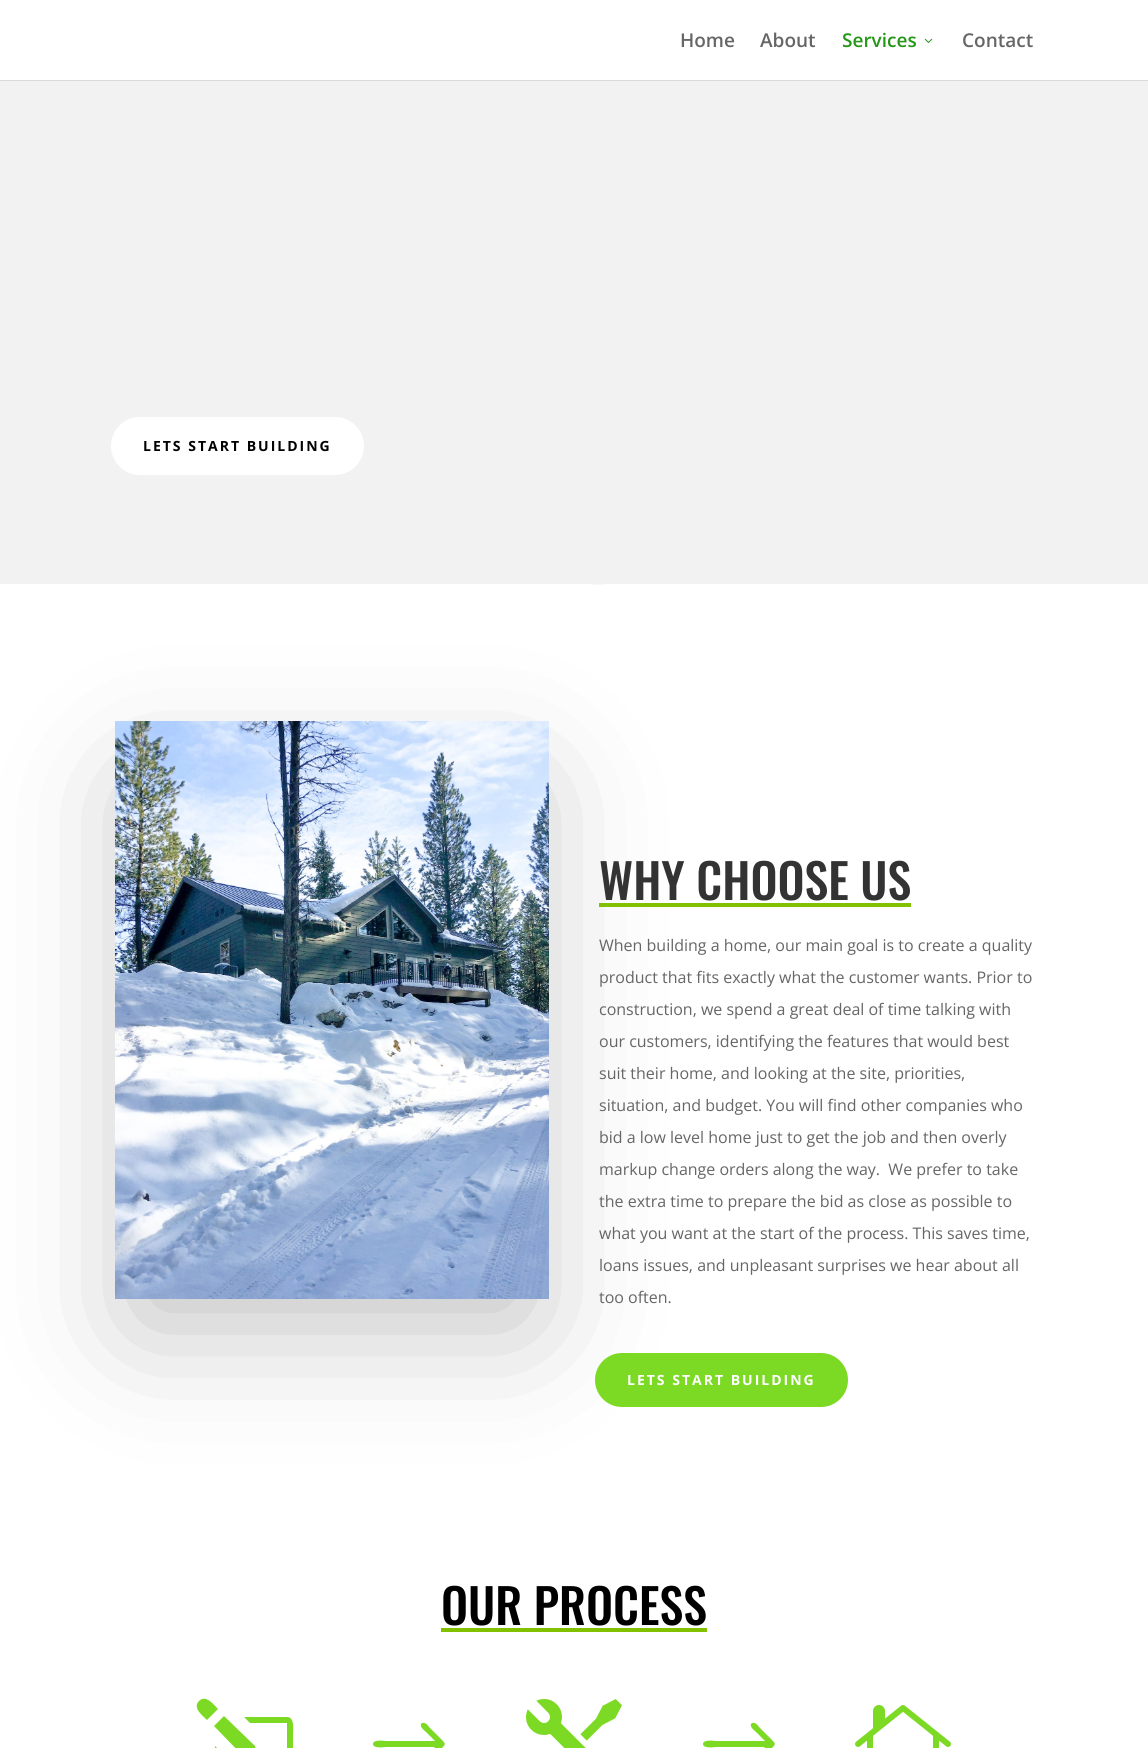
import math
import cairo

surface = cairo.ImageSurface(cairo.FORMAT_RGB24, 1148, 1748)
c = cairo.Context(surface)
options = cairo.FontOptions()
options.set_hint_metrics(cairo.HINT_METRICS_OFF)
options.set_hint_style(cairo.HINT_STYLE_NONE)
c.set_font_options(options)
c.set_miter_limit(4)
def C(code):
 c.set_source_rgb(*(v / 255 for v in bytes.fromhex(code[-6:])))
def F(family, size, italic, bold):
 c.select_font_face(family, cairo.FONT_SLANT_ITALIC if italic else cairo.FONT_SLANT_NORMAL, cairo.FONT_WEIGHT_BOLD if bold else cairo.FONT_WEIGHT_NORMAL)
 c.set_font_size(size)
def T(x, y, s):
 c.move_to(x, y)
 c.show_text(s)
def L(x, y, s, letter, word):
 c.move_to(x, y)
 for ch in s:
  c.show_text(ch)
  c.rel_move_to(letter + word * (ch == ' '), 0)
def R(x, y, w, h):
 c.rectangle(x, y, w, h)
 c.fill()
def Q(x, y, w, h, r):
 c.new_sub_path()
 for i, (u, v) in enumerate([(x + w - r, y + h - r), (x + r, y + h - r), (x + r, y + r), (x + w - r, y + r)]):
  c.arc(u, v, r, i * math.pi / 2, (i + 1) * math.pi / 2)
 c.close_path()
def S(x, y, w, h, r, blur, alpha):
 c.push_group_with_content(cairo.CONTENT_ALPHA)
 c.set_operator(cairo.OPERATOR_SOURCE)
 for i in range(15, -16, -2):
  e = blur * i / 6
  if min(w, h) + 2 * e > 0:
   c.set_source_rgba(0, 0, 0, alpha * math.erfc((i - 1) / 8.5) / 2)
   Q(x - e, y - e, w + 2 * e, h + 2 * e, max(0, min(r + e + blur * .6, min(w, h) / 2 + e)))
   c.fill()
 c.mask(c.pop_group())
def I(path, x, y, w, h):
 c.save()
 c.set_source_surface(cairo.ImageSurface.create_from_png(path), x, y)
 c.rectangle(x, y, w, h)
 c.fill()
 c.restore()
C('ffffff')
c.paint()
C('dadada')
R(0,80,1148,1)
F('Open Sans SemiBold',19,0,0)
C('666666')
T(680,47,'Home')
T(760,47,'About')
C('249618')
T(842,47,'Services')
I('1.png',924,38,9,5)
C('666666')
T(962,47,'Contact')
C('f2f2f2')
R(0,81,1148,504)
C('ffffff')
Q(111,417,253,58,29)
c.fill()
F('Open Sans',14,0,1)
C('000000')
L(143,451,'LETS START BUILDING',2,0)
I('2.png',0,584,1148,1)
C('000000')
S(135,786,394,538,0,65,.25)
I('3.png',115,721,434,578)
F('Oswald Medium',48,0,0)
C('333333')
T(599,900,'WHY CHOOSE US')
C('81c100')
R(599,903,312,4)
F('Open Sans',16,0,0)
C('666666')
T(599,951,'When building a home, our main goal is to create a quality')
T(599,983,'product that fits exactly what the customer wants. Prior to')
T(599,1015,'construction, we spend a great deal of time talking with')
T(599,1047,'our customers, identifying the features that would best')
T(599,1079,'suit their home, and looking at the site, priorities,')
T(599,1111,'situation, and budget. You will find other companies who')
T(599,1143,'bid a low level home just to get the job and then overly')
T(599,1175,'markup change orders along the way.  We prefer to take')
T(599,1207,'the extra time to prepare the bid as close as possible to')
T(599,1239,'what you want at the start of the process. This saves time,')
T(599,1271,'loans issues, and unpleasant surprises we hear about all')
T(599,1303,'too often.')
C('7cda24')
Q(595,1353,253,54,27)
c.fill()
F('Open Sans',14,0,1)
C('ffffff')
L(627,1385,'LETS START BUILDING',2,0)
F('Oswald Medium',48,0,0)
C('000000')
T(441,1625,'OUR PROCESS')
C('81c100')
R(441,1628,266,4)
C('7cda24')
c.new_path()
c.move_to(261,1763)
c.line_to(255,1746)
c.line_to(224,1716)
c.line_to(214,1726)
c.line_to(244,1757)
c.close_path()
c.move_to(199,1701)
c.curve_to(192,1708,203,1716,207,1720)
c.line_to(218,1709)
c.curve_to(214,1705,206,1694,199,1701)
c.close_path()
c.move_to(287,1717)
c.line_to(244,1717)
c.line_to(250,1723)
c.line_to(287,1723)
c.line_to(287,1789)
c.line_to(221,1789)
c.line_to(221,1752)
c.line_to(215,1746)
c.line_to(215,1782)
c.curve_to(215,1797,217,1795,232,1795)
c.line_to(276,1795)
c.curve_to(294,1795,293,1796,293,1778)
c.line_to(293,1734)
c.curve_to(293,1730,295,1717,287,1717)
c.close_path()
c.fill()
c.new_path()
c.move_to(373,1744)
c.curve_to(373,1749,385,1747,386,1747)
c.line_to(435,1747)
c.line_to(426,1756)
c.curve_to(424,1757,420,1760,421,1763)
c.curve_to(422,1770,432,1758,432,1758)
c.line_to(441,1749)
c.curve_to(446,1744,446,1744,441,1739)
c.line_to(429,1727)
c.curve_to(428,1725,425,1722,422,1723)
c.curve_to(418,1726,425,1731,426,1732)
c.line_to(435,1741)
c.line_to(386,1741)
c.curve_to(385,1741,373,1739,373,1744)
c.close_path()
c.fill()
I('4.png',526,1699,96,49)
c.new_path()
c.move_to(703,1744)
c.curve_to(703,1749,715,1747,716,1747)
c.line_to(765,1747)
c.line_to(756,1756)
c.curve_to(754,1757,750,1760,751,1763)
c.curve_to(752,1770,762,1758,762,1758)
c.line_to(771,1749)
c.curve_to(776,1744,776,1744,771,1739)
c.line_to(759,1727)
c.curve_to(758,1725,755,1722,752,1723)
c.curve_to(748,1726,755,1731,756,1732)
c.line_to(765,1741)
c.line_to(716,1741)
c.curve_to(715,1741,703,1739,703,1744)
c.close_path()
c.fill()
I('5.png',855,1705,96,43)
surface.write_to_png('o.png')
